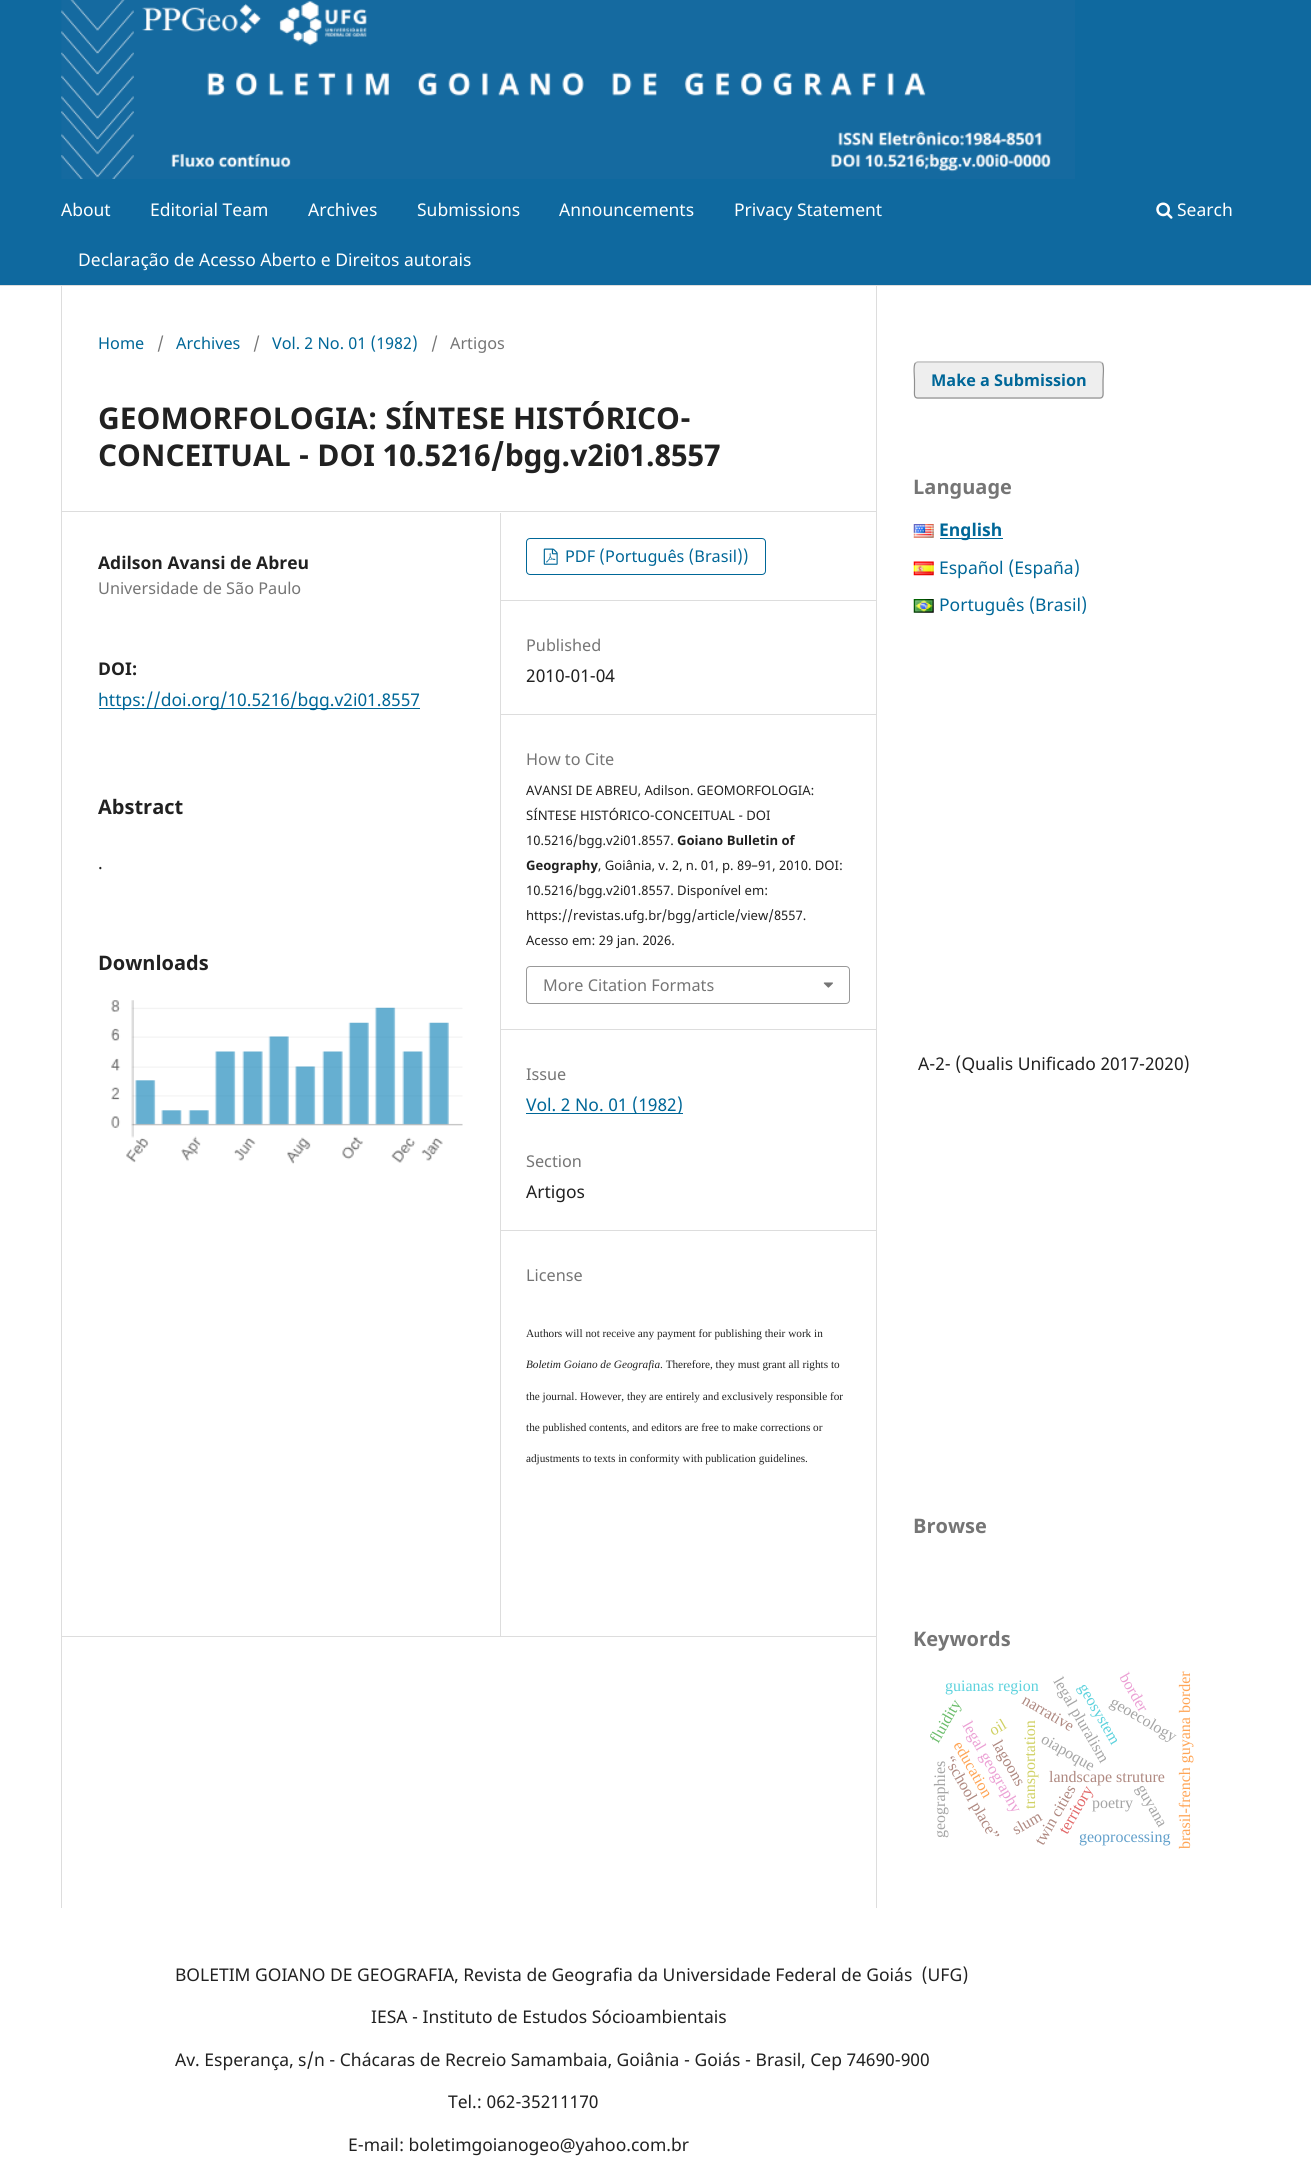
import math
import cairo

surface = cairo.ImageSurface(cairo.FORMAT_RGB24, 1311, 2182)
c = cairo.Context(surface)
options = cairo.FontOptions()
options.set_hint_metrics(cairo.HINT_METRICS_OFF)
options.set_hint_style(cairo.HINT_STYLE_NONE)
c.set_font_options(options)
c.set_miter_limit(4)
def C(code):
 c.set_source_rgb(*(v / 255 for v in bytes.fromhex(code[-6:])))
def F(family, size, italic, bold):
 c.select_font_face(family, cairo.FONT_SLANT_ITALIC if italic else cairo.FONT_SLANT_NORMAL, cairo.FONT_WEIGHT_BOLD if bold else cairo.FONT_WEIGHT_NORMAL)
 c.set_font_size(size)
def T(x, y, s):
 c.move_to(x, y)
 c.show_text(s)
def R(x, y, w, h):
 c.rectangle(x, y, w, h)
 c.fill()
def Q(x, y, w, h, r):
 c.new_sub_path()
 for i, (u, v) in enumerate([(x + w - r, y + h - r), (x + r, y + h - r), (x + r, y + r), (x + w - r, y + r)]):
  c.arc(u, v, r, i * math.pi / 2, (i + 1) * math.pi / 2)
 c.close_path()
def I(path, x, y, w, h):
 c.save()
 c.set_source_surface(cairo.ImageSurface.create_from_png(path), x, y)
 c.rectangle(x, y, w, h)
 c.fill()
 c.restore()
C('ffffff')
c.paint()
C('0f699f')
R(0,0,1311,285)
C('dddddd')
R(0,285,1311,1)
I('1.png',61,0,1014,179)
F('Noto Sans',17.5,0,0)
C('ffffff')
T(61,216,'About')
T(150,216,'Editorial Team')
T(308,216,'Archives')
T(417,216,'Submissions')
T(559,216,'Announcements')
T(734,216,'Privacy Statement')
T(78,266,'Declaração de Acesso Aberto e Direitos autorais')
I('2.png',1156,202,17,17)
T(1177,216,'Search')
C('dddddd')
R(61,511,815,1)
R(61,1636,815,1)
R(61,286,1,1622)
F('Noto Sans',16.25,0,0)
C('006798')
T(98,349,'Home')
C('757575')
T(157,349,'/')
C('006798')
T(176,349,'Archives')
C('757575')
T(253,349,'/')
C('006798')
T(272,349,'Vol. 2 No. 01 (1982)')
C('757575')
T(431,349,'/')
T(450,349,'Artigos')
F('Noto Sans',30,0,1)
C('212121')
T(98,429,'GEOMORFOLOGIA: SÍNTESE HISTÓRICO-')
T(98,466,'CONCEITUAL - DOI 10.5216/bgg.v2i01.8557')
F('Noto Sans',17.5,0,1)
T(98,569,'Adilson Avansi de Abreu')
F('Noto Sans',16.25,0,0)
C('757575')
T(98,594,'Universidade de São Paulo')
F('Noto Sans',17.5,0,1)
C('212121')
T(98,675,'DOI:')
C('006798')
R(99,708,321,1)
F('Noto Sans',17.5,0,0)
T(98,706,'https://doi.org/10.5216/bgg.v2i01.8557')
F('Noto Sans',20,0,1)
C('212121')
T(98,814,'Abstract')
F('Noto Sans',17.5,0,0)
T(98,869,'.')
F('Noto Sans',20,0,1)
T(98,970,'Downloads')
I('3.png',111,1000,352,164)
C('dddddd')
R(500,513,1,1123)
R(501,600,375,1)
Q(526.5,538.5,239,36,3.5)
C('006798')
c.set_line_width(1)
c.stroke()
I('4.png',543,548,15,17)
F('Noto Sans',16.25,0,0)
T(565,562,'PDF (Português (Brasil))')
C('dddddd')
R(501,714,375,1)
C('757575')
T(526,651,'Published')
F('Noto Sans',17.5,0,0)
C('212121')
T(526,682,'2010-01-04')
C('dddddd')
R(501,1029,375,1)
F('Noto Sans',16.25,0,0)
C('757575')
T(526,765,'How to Cite')
F('Noto Sans',13.1,0,0)
C('212121')
T(526,795,'AVANSI DE ABREU, Adilson. GEOMORFOLOGIA:')
T(526,820,'SÍNTESE HISTÓRICO-CONCEITUAL - DOI')
T(526,845,'10.5216/bgg.v2i01.8557.')
F('Noto Sans',13.1,0,1)
T(677,845,'Goiano Bulletin of')
T(526,870,'Geography')
F('Noto Sans',13.1,0,0)
T(598,870,', Goiânia, v. 2, n. 01, p. 89–91, 2010. DOI:')
T(526,895,'10.5216/bgg.v2i01.8557. Disponível em:')
T(526,920,'https://revistas.ufg.br/bgg/article/view/8557.')
T(526,945,'Acesso em: 29 jan. 2026.')
Q(526.5,966.5,323,37,3.5)
C('999999')
c.stroke()
F('Noto Sans',16.25,0,0)
C('757575')
T(543,991,'More Citation Formats')
I('5.png',823,982,10,6)
C('dddddd')
R(501,1230,375,1)
C('757575')
T(526,1080,'Issue')
C('006798')
R(526,1113,157,1)
F('Noto Sans',17.5,0,0)
T(526,1111,'Vol. 2 No. 01 (1982)')
F('Noto Sans',16.25,0,0)
C('757575')
T(526,1167,'Section')
F('Noto Sans',17.5,0,0)
C('212121')
T(526,1198,'Artigos')
F('Noto Sans',16.25,0,0)
C('757575')
T(526,1281,'License')
F('Liberation Serif',11.25,0,0)
C('212121')
T(526,1337,'Authors will not receive any payment for publishing their work in')
F('Liberation Serif',11.25,1,0)
T(526,1368,'Boletim Goiano de Geografia')
F('Liberation Serif',11.25,0,0)
T(660,1368,'. Therefore, they must grant all rights to')
T(526,1400,'the journal. However, they are entirely and exclusively responsible for')
T(526,1431,'the published contents, and editors are free to make corrections or')
T(526,1462,'adjustments to texts in conformity with publication guidelines.')
C('dddddd')
R(876,286,1,1622)
C('eeeeee')
Q(914,361,190,38,4)
c.fill()
c.new_path()
c.move_to(915.5,363)
c.line_to(917.5,362)
c.line_to(1100,362)
c.line_to(1102,363)
C('bbbbbb')
c.set_line_width(1.2)
c.stroke()
c.new_path()
c.move_to(1102,363)
c.curve_to(1104.5,365,1103,377,1103,380)
c.line_to(1103,390)
c.curve_to(1103,392.5,1104,398,1100,398)
c.line_to(917.5,398)
c.curve_to(913.5,398,914.5,392.5,914.5,390)
c.line_to(914.5,380)
c.curve_to(914.5,377,913,365,915.5,363)
c.set_source_rgba(0,0,0,0.4)
c.stroke()
F('Noto Sans',16.25,0,1)
C('006798')
T(931,386,'Make a Submission')
F('Noto Sans',20,0,1)
C('757575')
T(913,494,'Language')
I('6.png',913,524,21,14)
C('006798')
R(940,538,63,1)
F('Noto Sans',17.5,0,1)
T(939,536,'English')
I('7.png',913,561,21,15)
F('Noto Sans',17.5,0,0)
T(939,574,'Español (España)')
I('8.png',913,599,21,14)
T(939,611,'Português (Brasil)')
C('212121')
T(918,1070,'A-2- (Qualis Unificado 2017-2020)')
F('Noto Sans',20,0,1)
C('757575')
T(913,1533,'Browse')
T(913,1646,'Keywords')
F('Liberation Serif',16,0,0)
C('5dd2dd')
T(945,1691,'guianas region')
C('a5a5a5')
c.save()
c.translate(1053,1681)
c.rotate(60 * math.pi / 180)
T(0,0,'legal pluralism')
c.restore()
C('eba0d4')
c.save()
c.translate(1119,1677)
c.rotate(60 * math.pi / 180)
T(0,0,'border')
c.restore()
C('ffa556')
c.save()
c.translate(1190,1849)
c.rotate(-90 * math.pi / 180)
T(0,0,'brasil-french guyana border')
c.restore()
C('6bbd6b')
c.save()
c.translate(938,1744)
c.rotate(-60 * math.pi / 180)
T(0,0,'fluidity')
c.restore()
C('eba0d4')
c.save()
c.translate(962,1725)
c.rotate(60 * math.pi / 180)
T(0,0,'legal geography')
c.restore()
C('d0d164')
c.save()
c.translate(993,1736)
c.rotate(-30 * math.pi / 180)
T(0,0,'oil')
c.restore()
C('af8981')
c.save()
c.translate(1021,1703)
c.rotate(30 * math.pi / 180)
T(0,0,'narrative')
c.restore()
C('5dd2dd')
c.save()
c.translate(1078,1687)
c.rotate(60 * math.pi / 180)
T(0,0,'geosystem')
c.restore()
C('a5a5a5')
c.save()
c.translate(1109,1705)
c.rotate(30 * math.pi / 180)
T(0,0,'geoecology')
c.restore()
C('d0d164')
c.save()
c.translate(1035,1809)
c.rotate(-90 * math.pi / 180)
T(0,0,'transportation')
c.restore()
C('a5a5a5')
c.save()
c.translate(1040,1742)
c.rotate(30 * math.pi / 180)
T(0,0,'oiapoque')
c.restore()
C('ffa556')
c.save()
c.translate(953,1745)
c.rotate(60 * math.pi / 180)
T(0,0,'education')
c.restore()
C('af8981')
c.save()
c.translate(992,1744)
c.rotate(60 * math.pi / 180)
T(0,0,'lagoons')
c.restore()
c.save()
c.translate(944,1760)
c.rotate(60 * math.pi / 180)
T(0,0,'“school place”')
c.restore()
C('a5a5a5')
c.save()
c.translate(945,1838)
c.rotate(-90 * math.pi / 180)
T(0,0,'geographies')
c.restore()
C('af8981')
T(1049,1782,'landscape struture')
C('e26869')
c.save()
c.translate(1067,1835)
c.rotate(-60 * math.pi / 180)
T(0,0,'territory')
c.restore()
C('af8981')
c.save()
c.translate(1043,1846)
c.rotate(-60 * math.pi / 180)
T(0,0,'twin cities')
c.restore()
C('a5a5a5')
c.save()
c.translate(1136,1788)
c.rotate(60 * math.pi / 180)
T(0,0,'guyana')
c.restore()
T(1092,1808,'poetry')
C('af8981')
c.save()
c.translate(1016,1835)
c.rotate(-30 * math.pi / 180)
T(0,0,'slum')
c.restore()
C('62a0cb')
T(1079,1842,'geoprocessing')
F('Noto Sans',17.5,0,0)
C('212121')
T(175,1981,'BOLETIM GOIANO DE GEOGRAFIA, Revista de Geografia da Universidade Federal de Goiás  (UFG)')
T(371,2023,'IESA - Instituto de Estudos Sócioambientais')
T(175,2066,'Av. Esperança, s/n - Chácaras de Recreio Samambaia, Goiânia - Goiás - Brasil, Cep 74690-900')
T(448,2108,'Tel.: 062-35211170')
T(348,2151,'E-mail: boletimgoianogeo@yahoo.com.br')
surface.write_to_png('o.png')
